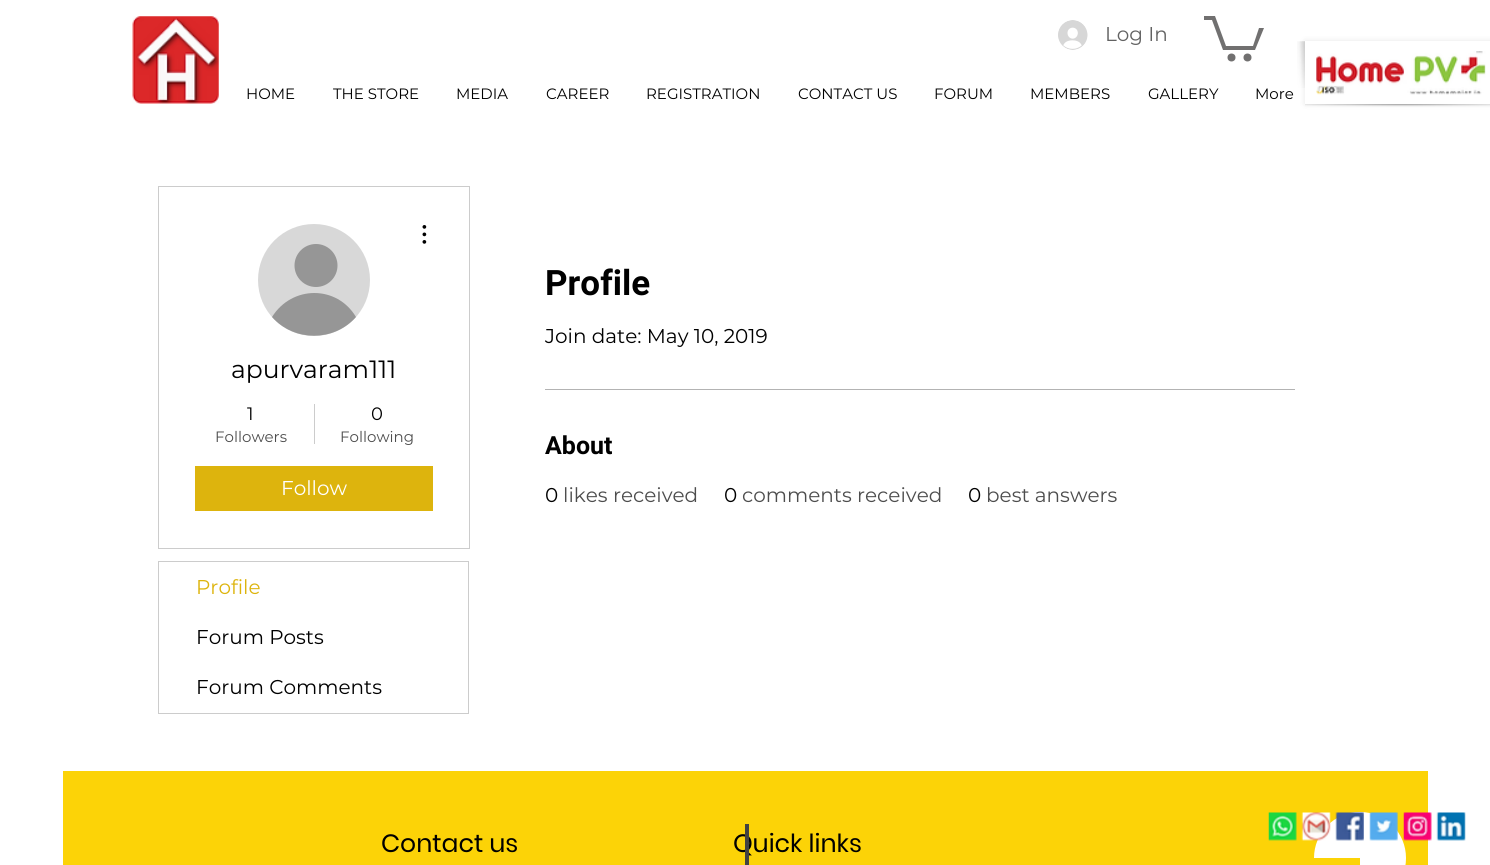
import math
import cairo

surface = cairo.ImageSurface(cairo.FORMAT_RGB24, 1490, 865)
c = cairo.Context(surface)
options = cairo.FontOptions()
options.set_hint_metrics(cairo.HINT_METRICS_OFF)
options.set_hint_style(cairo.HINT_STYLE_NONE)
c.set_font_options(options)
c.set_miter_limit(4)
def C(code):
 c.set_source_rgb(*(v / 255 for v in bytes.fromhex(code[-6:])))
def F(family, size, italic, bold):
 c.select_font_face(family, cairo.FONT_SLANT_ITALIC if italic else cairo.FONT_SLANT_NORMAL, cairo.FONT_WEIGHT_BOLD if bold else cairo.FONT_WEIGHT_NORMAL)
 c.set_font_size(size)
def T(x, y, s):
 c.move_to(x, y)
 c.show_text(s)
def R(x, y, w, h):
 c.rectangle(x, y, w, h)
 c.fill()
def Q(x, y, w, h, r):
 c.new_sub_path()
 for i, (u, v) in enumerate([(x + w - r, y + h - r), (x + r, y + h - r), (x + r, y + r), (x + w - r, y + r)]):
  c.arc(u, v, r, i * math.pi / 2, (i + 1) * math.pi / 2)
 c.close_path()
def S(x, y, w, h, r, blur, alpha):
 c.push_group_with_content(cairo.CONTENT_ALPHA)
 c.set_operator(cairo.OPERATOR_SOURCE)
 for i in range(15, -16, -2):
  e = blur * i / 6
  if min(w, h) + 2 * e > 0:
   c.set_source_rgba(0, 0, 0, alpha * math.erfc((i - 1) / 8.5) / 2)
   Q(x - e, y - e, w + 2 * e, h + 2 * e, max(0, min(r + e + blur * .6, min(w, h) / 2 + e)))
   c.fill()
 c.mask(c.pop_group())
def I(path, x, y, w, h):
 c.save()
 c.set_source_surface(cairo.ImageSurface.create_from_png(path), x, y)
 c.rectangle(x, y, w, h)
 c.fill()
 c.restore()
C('ffffff')
c.paint()
I('1.png',132,16,87,88)
I('2.png',1058,20,30,30)
F('Montserrat',20,0,0)
C('626262')
T(1105,41,'Log In')
C('717070')
c.new_path()
c.move_to(1264,28)
c.line_to(1255,50)
c.line_to(1223,50)
c.line_to(1212,20)
c.line_to(1204,20)
c.line_to(1204,16)
c.line_to(1215,16)
c.line_to(1226,46)
c.line_to(1253,46)
c.line_to(1259,28)
c.fill()
c.arc(1247.5,57.5,4,0,2 * math.pi)
c.fill()
c.arc(1231.5,57.5,4,0,2 * math.pi)
c.fill()
C('000000')
S(1305,41,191,63,0,3,.1)
C('ffffff')
R(1305,41,185,63)
I('3.png',1316,51,170,44)
I('4.png',1305,104,185,3)
I('5.png',1297,41,8,47)
F('Montserrat',15,0,0)
C('000000')
T(246,99,'HOME')
T(333,99,'THE STORE')
T(456,99,'MEDIA')
T(546,99,'CAREER')
T(646,99,'REGISTRATION')
T(798,99,'CONTACT US')
T(934,99,'FORUM')
T(1030,99,'MEMBERS')
T(1148,99,'GALLERY')
T(1255,99,'More')
c.rectangle(158.5,186.5,311,362)
C('cccccc')
c.set_line_width(1)
c.stroke()
C('d8d8d8')
c.arc(314,280,56,0,2 * math.pi)
c.fill()
C('969696')
c.arc(316,265.5,21.5,0,2 * math.pi)
c.fill()
c.new_path()
c.move_to(356,317)
c.curve_to(334,342,294,342,272,317)
c.curve_to(292,285,337,285,356,317)
c.close_path()
c.fill()
I('6.png',422,225,5,19)
F('Montserrat',25,0,0)
C('000000')
T(231,378,'apurvaram111')
F('Montserrat',18,0,0)
T(247,420,'1')
F('Montserrat',15,0,0)
C('4d4d4d')
T(215,442,'Followers')
C('cccccc')
R(314,404,1,40)
F('Montserrat',18,0,0)
C('000000')
T(371,420,'0')
F('Montserrat',15,0,0)
C('4d4d4d')
T(340,442,'Following')
C('ddb40d')
R(195,466,238,45)
F('Montserrat',20,0,0)
C('ffffff')
T(281,495,'Follow')
c.rectangle(158.5,561.5,310,152)
C('cccccc')
c.stroke()
C('ddb40d')
T(196,594,'Profile')
C('000000')
T(196,644,'Forum Posts')
T(196,694,'Forum Comments')
F('Roboto',35,0,1)
T(545,295,'Profile')
F('Montserrat',20,0,0)
T(545,343,'Join date: May 10, 2019')
C('b3b3b3')
R(545,389,750,1)
F('Roboto',25,0,1)
C('000000')
T(545,454,'About')
F('Montserrat',20,0,0)
T(545,502,'0')
C('4d4d4d')
T(563,502,'likes received')
C('000000')
T(724,502,'0')
C('4d4d4d')
T(742,502,'comments received')
C('000000')
T(968,502,'0')
C('4d4d4d')
T(986,502,'best answers')
C('fcd307')
R(63,771,1365,94)
I('7.png',1268,812,29,29)
C('ffffff')
c.new_path()
c.move_to(1360,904)
c.curve_to(1386,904,1406,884,1406,858)
c.curve_to(1406,833,1386,812,1360,812)
c.curve_to(1334,812,1314,833,1314,858)
c.line_to(1360,858)
c.close_path()
c.fill()
I('8.png',1301,812,30,29)
I('9.png',1335,812,29,29)
I('10.png',1369,812,29,29)
I('11.png',1403,812,29,29)
I('12.png',1436,812,30,29)
F('Poppins',25,0,0)
C('000000')
T(733,852,'Quick links')
C('424242')
R(745,824,4,41)
C('000000')
T(381,852,'Contact us')
surface.write_to_png('o.png')
